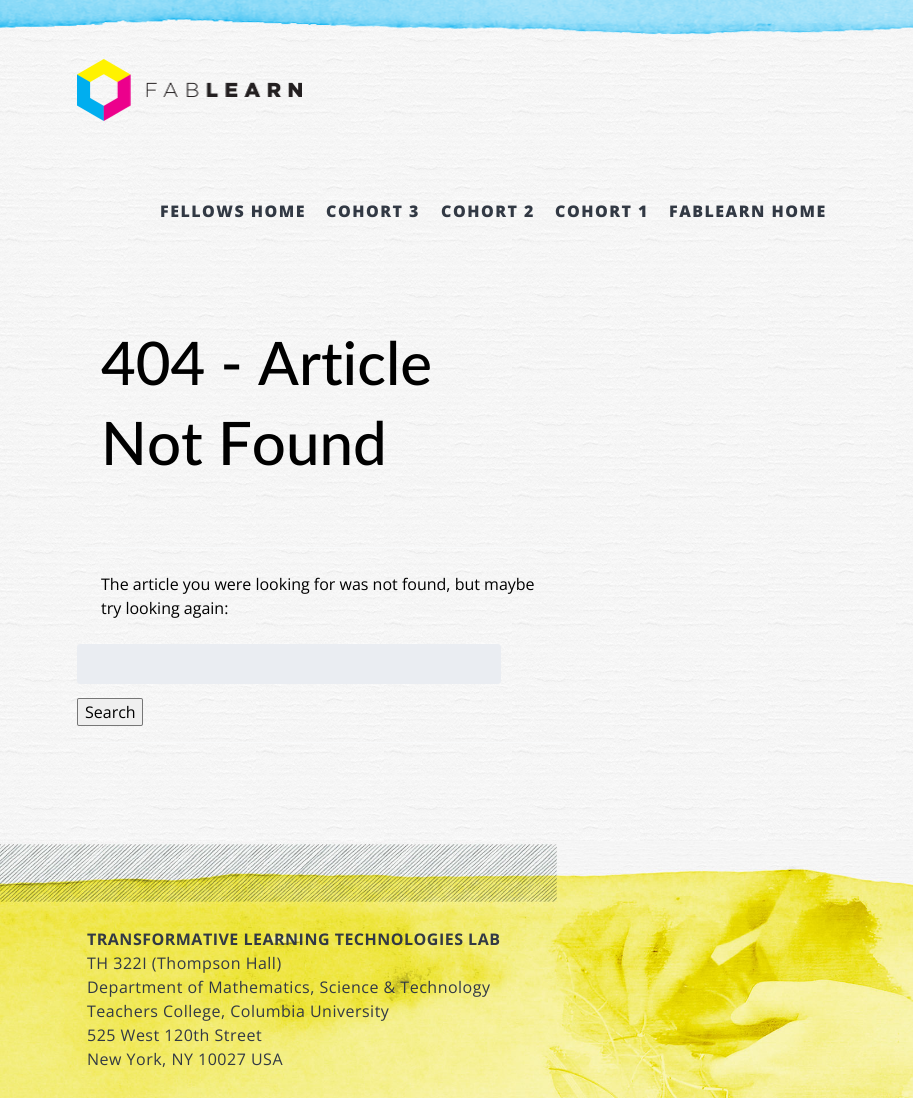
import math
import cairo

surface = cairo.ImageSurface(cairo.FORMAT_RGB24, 913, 1098)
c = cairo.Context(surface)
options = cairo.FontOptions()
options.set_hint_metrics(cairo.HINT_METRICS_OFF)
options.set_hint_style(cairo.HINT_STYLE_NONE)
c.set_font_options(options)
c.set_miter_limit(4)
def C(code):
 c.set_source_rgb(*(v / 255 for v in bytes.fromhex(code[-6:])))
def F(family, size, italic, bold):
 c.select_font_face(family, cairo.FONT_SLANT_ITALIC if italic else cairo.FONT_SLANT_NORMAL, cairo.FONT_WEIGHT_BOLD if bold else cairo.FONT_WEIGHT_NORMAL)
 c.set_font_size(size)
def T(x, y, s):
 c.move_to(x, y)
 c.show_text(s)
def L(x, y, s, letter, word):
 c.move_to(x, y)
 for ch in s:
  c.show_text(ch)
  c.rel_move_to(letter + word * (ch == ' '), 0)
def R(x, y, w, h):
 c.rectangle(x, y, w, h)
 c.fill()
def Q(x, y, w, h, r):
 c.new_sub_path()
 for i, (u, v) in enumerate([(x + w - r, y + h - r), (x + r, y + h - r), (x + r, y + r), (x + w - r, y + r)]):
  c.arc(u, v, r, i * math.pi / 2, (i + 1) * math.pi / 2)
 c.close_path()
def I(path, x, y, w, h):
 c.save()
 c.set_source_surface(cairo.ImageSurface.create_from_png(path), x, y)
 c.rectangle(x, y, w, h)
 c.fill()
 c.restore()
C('ffffff')
c.paint()
I('1.png',0,19,913,822)
I('2.png',0,0,913,35)
I('3.png',77,59,225,62)
F('Open Sans ExtraBold',16,0,0)
C('323944')
L(160,217,'FELLOWS HOME',1.5,0)
L(326,217,'COHORT 3',1.5,0)
L(441,217,'COHORT 2',1.5,0)
L(555,217,'COHORT 1',1.5,0)
L(669,217,'FABLEARN HOME',1.5,0)
C('f8f9fa')
R(77,547,494,1)
F('Lato Medium',60,0,0)
C('000000')
T(101,385,'404 - Article')
T(101,465,'Not Found')
F('Open Sans',16,0,0)
T(101,590,'The article you were looking for was not found, but maybe')
T(101,614,'try looking again:')
C('eaedf2')
Q(77,644,424,40,3)
c.fill()
C('efefef')
Q(77.5,698.5,65,27,1.5)
c.fill_preserve()
C('767676')
c.set_line_width(1)
c.stroke()
C('000000')
T(85,718,'Search')
C('f8f9fa')
R(77,742,494,1)
I('4.png',0,841,913,257)
F('Open Sans',16,0,1)
C('323944')
L(87,945,'TRANSFORMATIVE LEARNING TECHNOLOGIES LAB',.5,0)
F('Open Sans',16,0,0)
L(87,969,'TH 322I (Thompson Hall)',.5,0)
L(87,993,'Department of Mathematics, Science & Technology',.5,0)
L(87,1017,'Teachers College, Columbia University',.5,0)
L(87,1041,'525 West 120th Street',.5,0)
L(87,1065,'New York, NY 10027 USA',.5,0)
surface.write_to_png('o.png')
